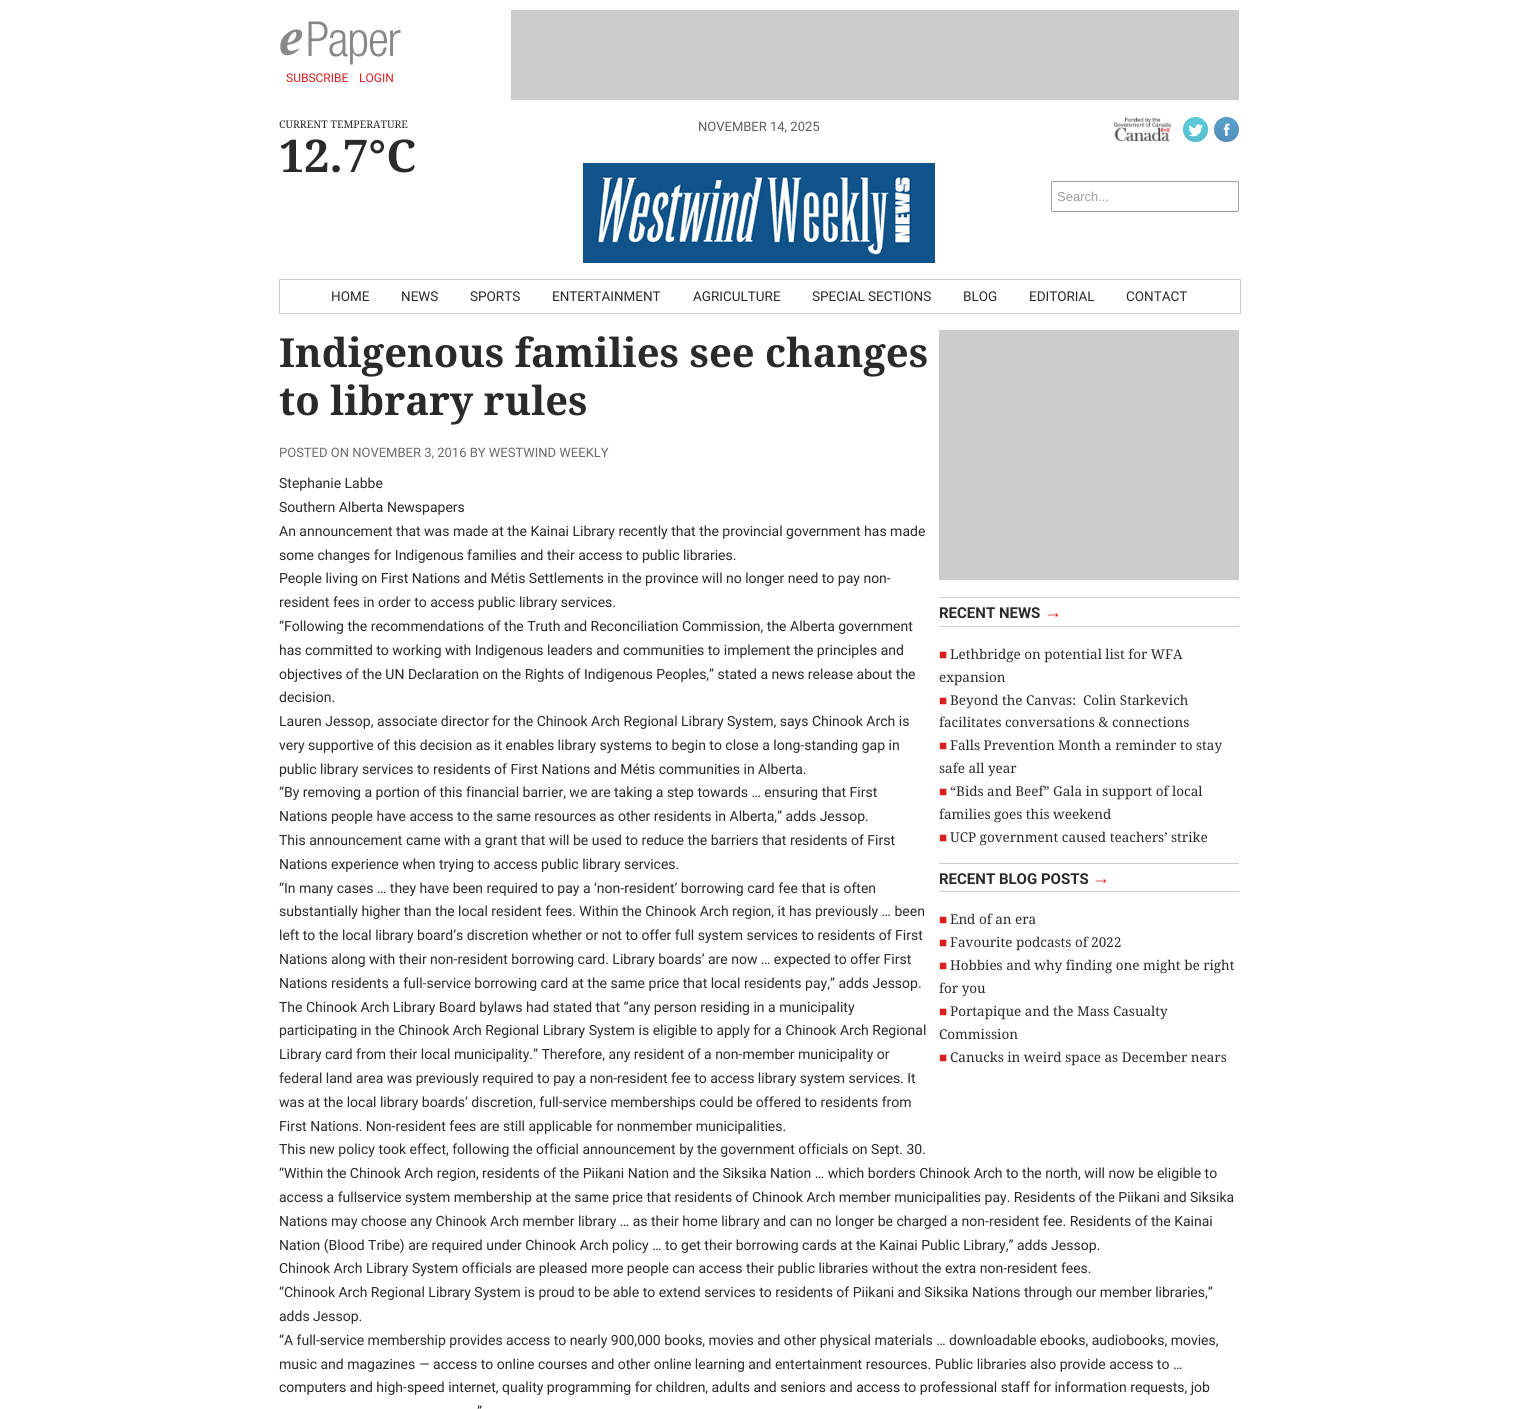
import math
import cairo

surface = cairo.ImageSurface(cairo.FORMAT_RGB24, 1517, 1409)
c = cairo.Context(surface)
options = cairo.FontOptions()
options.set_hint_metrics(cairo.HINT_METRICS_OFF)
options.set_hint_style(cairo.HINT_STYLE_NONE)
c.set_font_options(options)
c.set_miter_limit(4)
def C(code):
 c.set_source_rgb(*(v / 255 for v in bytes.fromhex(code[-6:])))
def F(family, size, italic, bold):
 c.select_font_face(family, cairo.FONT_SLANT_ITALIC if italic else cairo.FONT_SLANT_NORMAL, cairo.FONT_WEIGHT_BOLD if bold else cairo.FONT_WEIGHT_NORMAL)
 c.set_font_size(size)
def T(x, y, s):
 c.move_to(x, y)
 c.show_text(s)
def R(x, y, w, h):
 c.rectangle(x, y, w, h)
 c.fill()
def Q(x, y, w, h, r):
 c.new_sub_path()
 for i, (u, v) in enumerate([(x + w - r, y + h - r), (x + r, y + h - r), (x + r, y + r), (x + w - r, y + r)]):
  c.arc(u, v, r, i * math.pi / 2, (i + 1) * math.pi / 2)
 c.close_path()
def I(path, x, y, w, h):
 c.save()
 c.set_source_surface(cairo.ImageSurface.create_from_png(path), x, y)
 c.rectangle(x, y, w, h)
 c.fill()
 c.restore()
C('ffffff')
c.paint()
I('1.png',280,21,121,44)
F('Roboto',12,0,0)
C('db1f1f')
T(286,82,'SUBSCRIBE')
T(359,82,'LOGIN')
C('cccccc')
R(511,10,728,90)
F('Droid Serif',10.5,0,0)
C('2a2a2a')
T(279,128,'CURRENT TEMPERATURE')
F('Droid Serif',45,0,1)
T(279,172,'12.7°C')
F('Roboto',13,0,0)
C('5e5e5e')
T(698,131,'NOVEMBER 14, 2025')
I('2.png',583,163,352,100)
I('3.png',1113,117,59,25)
I('4.png',1183,117,25,25)
I('5.png',1214,117,25,25)
Q(1051.5,181.5,187,30,1.5)
C('9f9f9f')
c.set_line_width(1)
c.stroke()
F('Liberation Sans',13,0,0)
C('9e9e9e')
T(1057,201,'Search...')
c.rectangle(279.5,279.5,961,34)
C('cccccc')
c.stroke()
F('Roboto',13.5,0,0)
C('2a2a2a')
T(331,301,'HOME')
T(401,301,'NEWS')
T(470,301,'SPORTS')
T(552,301,'ENTERTAINMENT')
T(693,301,'AGRICULTURE')
T(812,301,'SPECIAL SECTIONS')
T(963,301,'BLOG')
T(1029,301,'EDITORIAL')
T(1126,301,'CONTACT')
F('Droid Serif',40,0,1)
T(279,367,'Indigenous families see changes')
T(279,415,'to library rules')
F('Roboto',13,0,0)
C('6a6a6a')
T(279,457,'POSTED ON NOVEMBER 3, 2016 BY WESTWIND WEEKLY')
F('Roboto',14,0,0)
C('2a2a2a')
T(279,488,'Stephanie Labbe')
T(279,512,'Southern Alberta Newspapers')
T(279,536,'An announcement that was made at the Kainai Library recently that the provincial government has made')
T(279,560,'some changes for Indigenous families and their access to public libraries.')
T(279,583,'People living on First Nations and Métis Settlements in the province will no longer need to pay non-')
T(279,607,'resident fees in order to access public library services.')
T(279,631,'“Following the recommendations of the Truth and Reconciliation Commission, the Alberta government')
T(279,655,'has committed to working with Indigenous leaders and communities to implement the principles and')
T(279,679,'objectives of the UN Declaration on the Rights of Indigenous Peoples,” stated a news release about the')
T(279,702,'decision.')
T(279,726,'Lauren Jessop, associate director for the Chinook Arch Regional Library System, says Chinook Arch is')
T(279,750,'very supportive of this decision as it enables library systems to begin to close a long-standing gap in')
T(279,774,'public library services to residents of First Nations and Métis communities in Alberta.')
T(279,797,'“By removing a portion of this financial barrier, we are taking a step towards … ensuring that First')
T(279,821,'Nations people have access to the same resources as other residents in Alberta,” adds Jessop.')
T(279,845,'This announcement came with a grant that will be used to reduce the barriers that residents of First')
T(279,869,'Nations experience when trying to access public library services.')
T(279,893,'“In many cases … they have been required to pay a ‘non-resident’ borrowing card fee that is often')
T(279,916,'substantially higher than the local resident fees. Within the Chinook Arch region, it has previously … been')
T(279,940,'left to the local library board’s discretion whether or not to offer full system services to residents of First')
T(279,964,'Nations along with their non-resident borrowing card. Library boards’ are now … expected to offer First')
T(279,988,'Nations residents a full-service borrowing card at the same price that local residents pay,” adds Jessop.')
T(279,1012,'The Chinook Arch Library Board bylaws had stated that “any person residing in a municipality')
T(279,1035,'participating in the Chinook Arch Regional Library System is eligible to apply for a Chinook Arch Regional')
T(279,1059,'Library card from their local municipality.” Therefore, any resident of a non-member municipality or')
T(279,1083,'federal land area was previously required to pay a non-resident fee to access library system services. It')
T(279,1107,'was at the local library boards’ discretion, full-service memberships could be offered to residents from')
T(279,1131,'First Nations. Non-resident fees are still applicable for nonmember municipalities.')
T(279,1154,'This new policy took effect, following the official announcement by the government officials on Sept. 30.')
T(279,1178,'“Within the Chinook Arch region, residents of the Piikani Nation and the Siksika Nation … which borders Chinook Arch to the north, will now be eligible to')
T(279,1202,'access a fullservice system membership at the same price that residents of Chinook Arch member municipalities pay. Residents of the Piikani and Siksika')
T(279,1226,'Nations may choose any Chinook Arch member library … as their home library and can no longer be charged a non-resident fee. Residents of the Kainai')
T(279,1250,'Nation (Blood Tribe) are required under Chinook Arch policy … to get their borrowing cards at the Kainai Public Library,” adds Jessop.')
T(279,1273,'Chinook Arch Library System officials are pleased more people can access their public libraries without the extra non-resident fees.')
T(279,1297,'“Chinook Arch Regional Library System is proud to be able to extend services to residents of Piikani and Siksika Nations through our member libraries,”')
T(279,1321,'adds Jessop.')
T(279,1345,'“A full-service membership provides access to nearly 900,000 books, movies and other physical materials … downloadable ebooks, audiobooks, movies,')
T(279,1369,'music and magazines — access to online courses and other online learning and entertainment resources. Public libraries also provide access to …')
T(279,1392,'computers and high-speed internet, quality programming for children, adults and seniors and access to professional staff for information requests, job')
T(477,1416,'”')
C('cccccc')
R(939,330,300,250)
R(939,597,300,1)
R(939,626,300,1)
F('Roboto',15,0,1)
C('2a2a2a')
T(939,618,'RECENT NEWS')
F('Liberation Sans',18,0,1)
C('db1f1f')
T(1044,618,'→')
F('Liberation Serif',13.5,0,0)
T(939,659,'■')
F('Droid Serif',13.5,0,0)
C('2a2a2a')
T(950,659,'Lethbridge on potential list for WFA')
T(939,682,'expansion')
F('Liberation Serif',13.5,0,0)
C('db1f1f')
T(939,705,'■')
F('Droid Serif',13.5,0,0)
C('2a2a2a')
T(950,705,'Beyond the Canvas:  Colin Starkevich')
T(939,727,'facilitates conversations & connections')
F('Liberation Serif',13.5,0,0)
C('db1f1f')
T(939,750,'■')
F('Droid Serif',13.5,0,0)
C('2a2a2a')
T(950,750,'Falls Prevention Month a reminder to stay')
T(939,773,'safe all year')
F('Liberation Serif',13.5,0,0)
C('db1f1f')
T(939,796,'■')
F('Droid Serif',13.5,0,0)
C('2a2a2a')
T(950,796,'“Bids and Beef” Gala in support of local')
T(939,819,'families goes this weekend')
F('Liberation Serif',13.5,0,0)
C('db1f1f')
T(939,842,'■')
F('Droid Serif',13.5,0,0)
C('2a2a2a')
T(950,842,'UCP government caused teachers’ strike')
C('cccccc')
R(939,863,300,1)
R(939,891,300,1)
F('Roboto',15,0,1)
C('2a2a2a')
T(939,884,'RECENT BLOG POSTS')
F('Liberation Sans',18,0,1)
C('db1f1f')
T(1092,884,'→')
F('Liberation Serif',13.5,0,0)
T(939,924,'■')
F('Droid Serif',13.5,0,0)
C('2a2a2a')
T(950,924,'End of an era')
F('Liberation Serif',13.5,0,0)
C('db1f1f')
T(939,947,'■')
F('Droid Serif',13.5,0,0)
C('2a2a2a')
T(950,947,'Favourite podcasts of 2022')
F('Liberation Serif',13.5,0,0)
C('db1f1f')
T(939,970,'■')
F('Droid Serif',13.5,0,0)
C('2a2a2a')
T(950,970,'Hobbies and why finding one might be right')
T(939,993,'for you')
F('Liberation Serif',13.5,0,0)
C('db1f1f')
T(939,1016,'■')
F('Droid Serif',13.5,0,0)
C('2a2a2a')
T(950,1016,'Portapique and the Mass Casualty')
T(939,1039,'Commission')
F('Liberation Serif',13.5,0,0)
C('db1f1f')
T(939,1062,'■')
F('Droid Serif',13.5,0,0)
C('2a2a2a')
T(950,1062,'Canucks in weird space as December nears')
surface.write_to_png('o.png')
